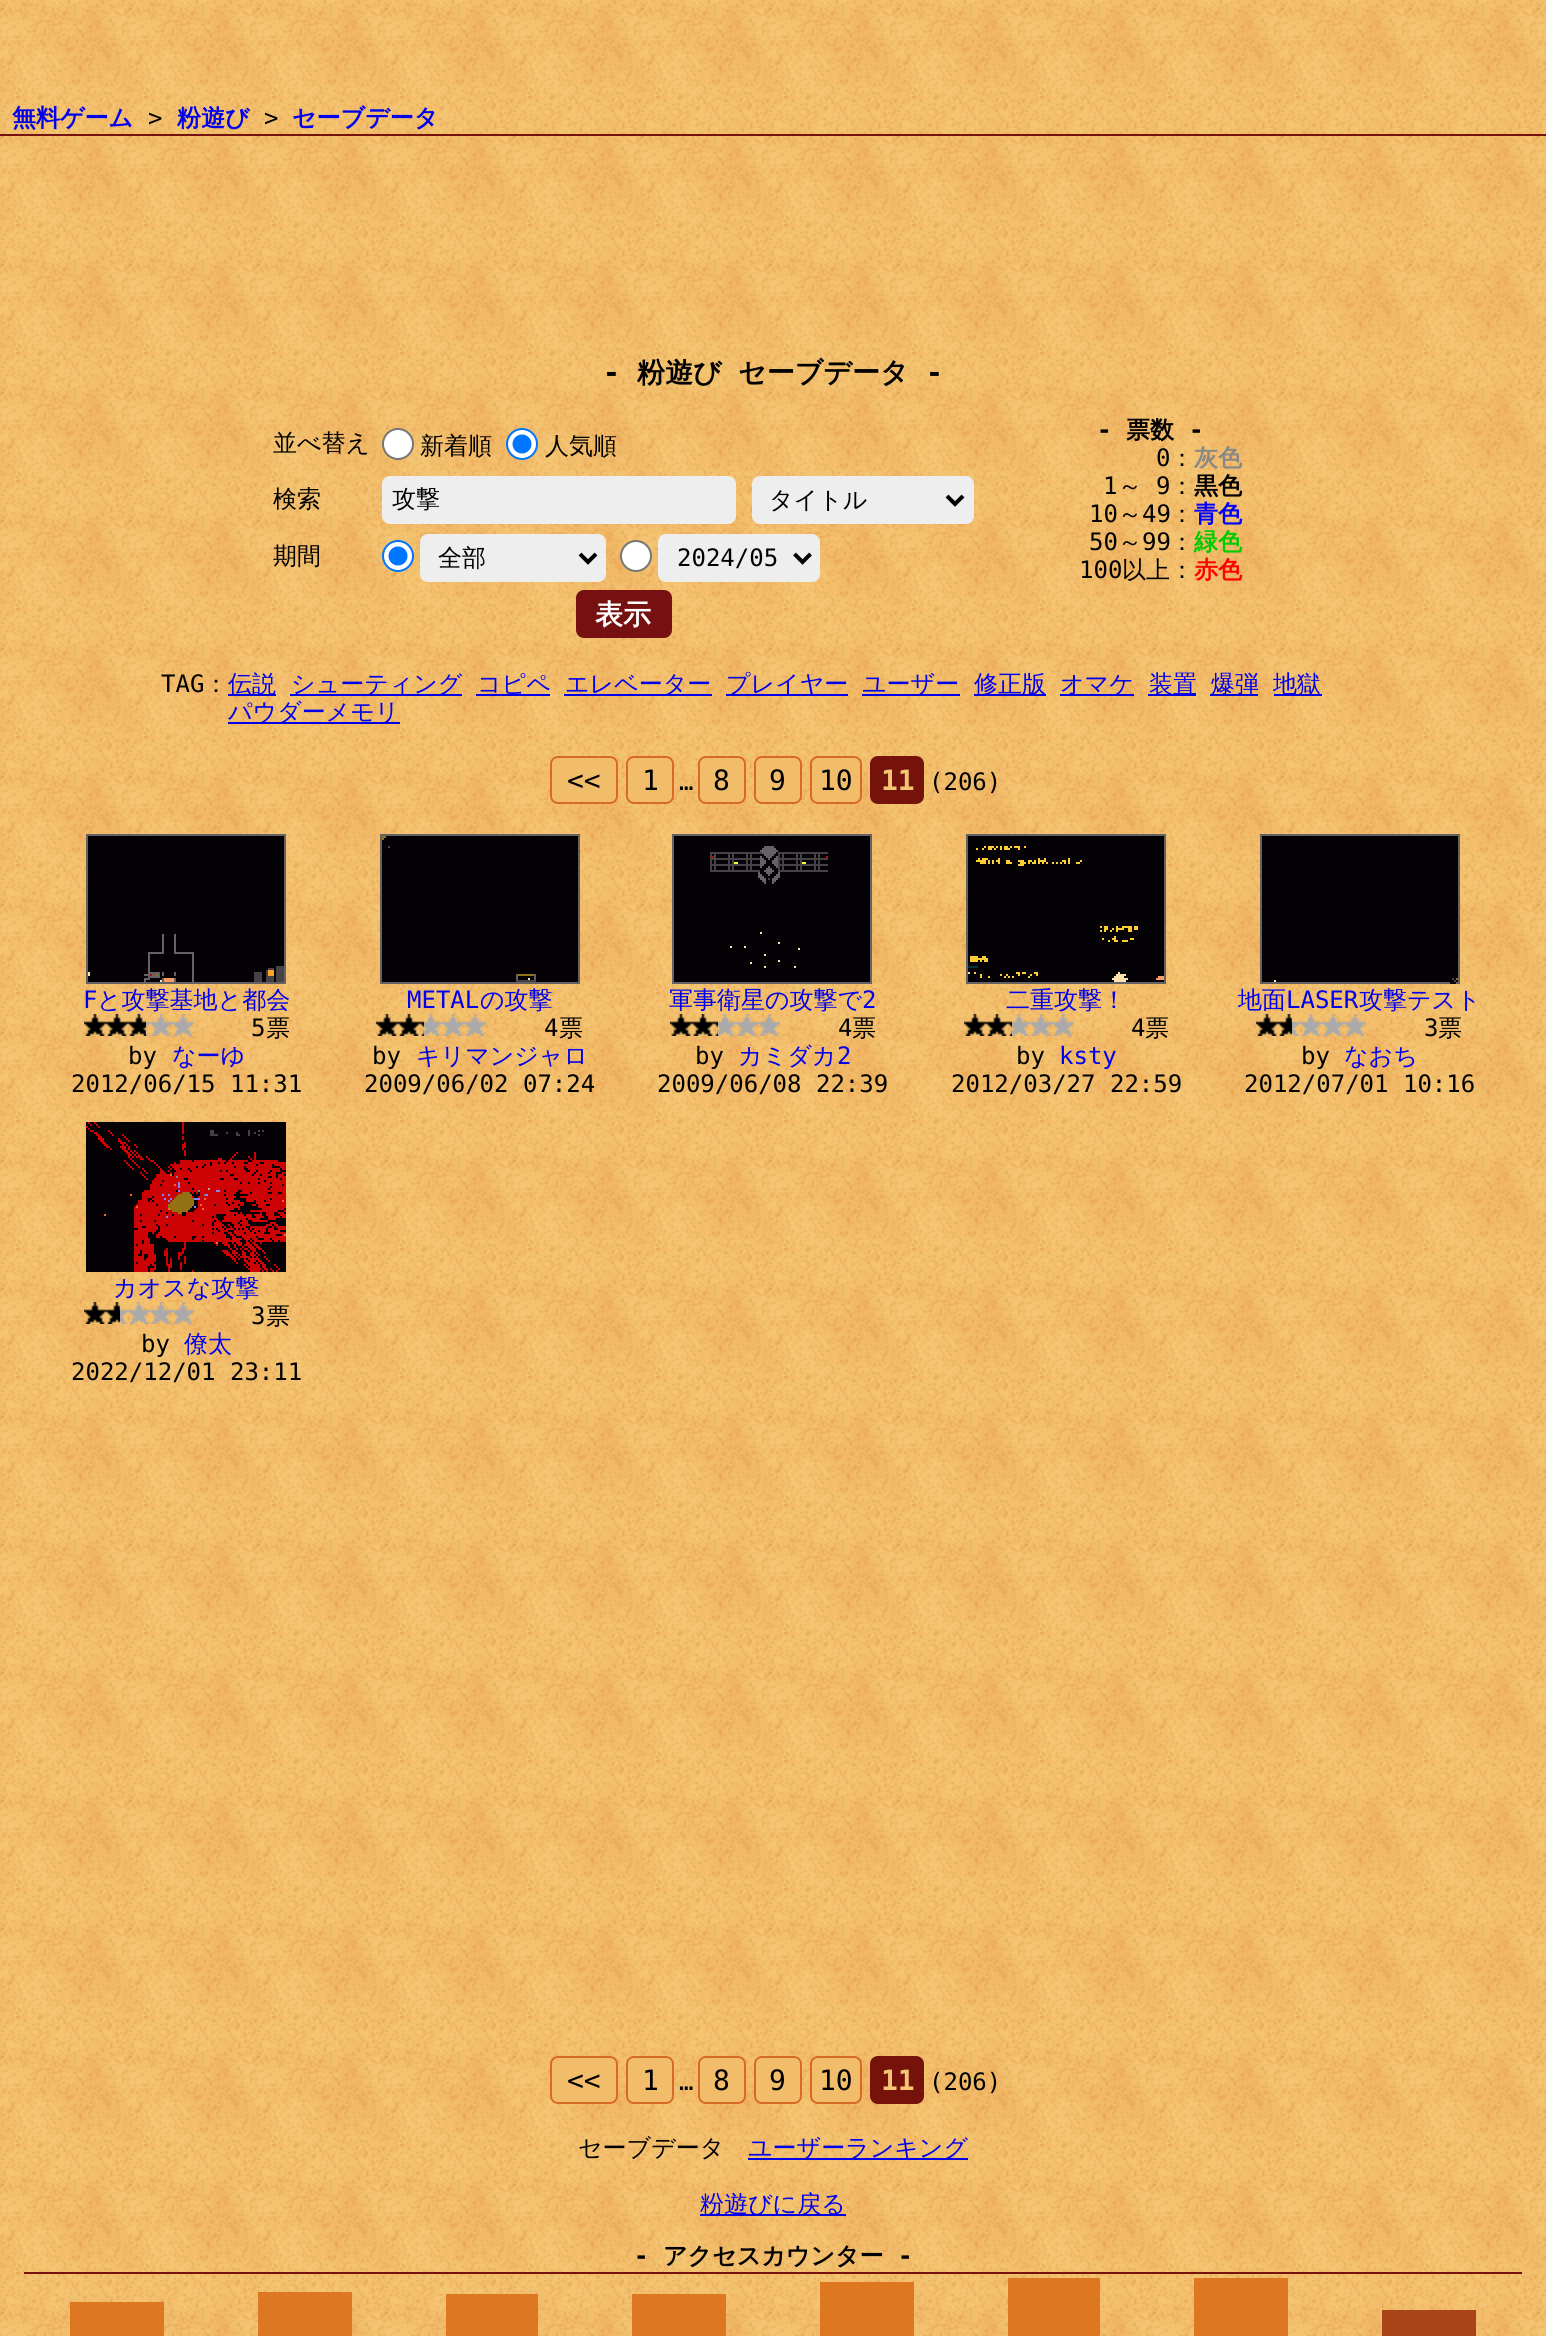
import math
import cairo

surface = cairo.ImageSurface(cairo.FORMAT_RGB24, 1546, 2336)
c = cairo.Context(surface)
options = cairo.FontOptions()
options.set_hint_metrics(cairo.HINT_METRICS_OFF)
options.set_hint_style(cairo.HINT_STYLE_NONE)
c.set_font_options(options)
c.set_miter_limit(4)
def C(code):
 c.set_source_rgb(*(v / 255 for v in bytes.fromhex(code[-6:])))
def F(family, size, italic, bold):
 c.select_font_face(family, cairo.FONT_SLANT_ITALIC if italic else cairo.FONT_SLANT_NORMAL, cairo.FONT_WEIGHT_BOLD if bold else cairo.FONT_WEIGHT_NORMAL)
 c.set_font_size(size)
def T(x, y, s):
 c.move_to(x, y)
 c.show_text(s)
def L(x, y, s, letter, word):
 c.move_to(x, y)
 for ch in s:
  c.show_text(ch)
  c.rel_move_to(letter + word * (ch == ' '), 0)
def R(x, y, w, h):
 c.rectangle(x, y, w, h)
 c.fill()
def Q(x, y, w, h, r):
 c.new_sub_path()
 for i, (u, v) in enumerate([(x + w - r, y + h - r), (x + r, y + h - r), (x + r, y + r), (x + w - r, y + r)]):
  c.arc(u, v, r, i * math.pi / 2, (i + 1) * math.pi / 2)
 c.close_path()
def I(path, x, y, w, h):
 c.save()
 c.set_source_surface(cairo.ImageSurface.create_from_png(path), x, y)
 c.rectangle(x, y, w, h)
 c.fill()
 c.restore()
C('ffffff')
c.paint()
I('1.png',0,0,1546,2336)
C('75120b')
R(0,134,1546,2)
F('WenQuanYi Zen Hei',24,0,1)
C('0000ee')
T(12,126,'無料ゲーム')
F('DejaVu Sans Mono',24,0,0)
C('000000')
T(148,126,'>')
F('WenQuanYi Zen Hei',24,0,1)
C('0000ee')
T(177,126,'粉遊び')
F('DejaVu Sans Mono',24,0,0)
C('000000')
T(264,126,'>')
F('WenQuanYi Zen Hei',24,0,1)
C('0000ee')
T(292,126,'セーブデータ')
F('DejaVu Sans Mono',28,0,1)
C('000000')
T(603,382,'-')
F('WenQuanYi Zen Hei',28,0,1)
L(637,382,'粉遊び セーブデータ',0,8)
F('DejaVu Sans Mono',28,0,1)
T(926,382,'-')
F('WenQuanYi Zen Hei Medium',24,0,0)
T(273,451,'並べ替え')
C('ffffff')
c.new_path()
c.arc(398,444,15,0,2 * math.pi)
c.fill_preserve()
C('767676')
c.stroke()
C('000000')
T(420,454,'新着順')
C('ffffff')
c.new_path()
c.arc(522,444,15,0,2 * math.pi)
c.fill_preserve()
C('0075ff')
c.stroke()
c.arc(522,444,9.5,0,2 * math.pi)
c.fill()
C('000000')
T(545,454,'人気順')
T(273,507,'検索')
C('eeeeee')
Q(383,477,352,46,7)
c.fill_preserve()
c.stroke()
C('000000')
T(392,507,'攻撃')
C('eeeeee')
Q(753,477,220,46,7)
c.fill_preserve()
c.stroke()
c.new_path()
c.move_to(947,496)
c.line_to(955,504)
c.line_to(963,496)
C('000000')
c.set_line_width(4)
c.stroke()
T(769,508,'タイトル')
T(273,564,'期間')
C('ffffff')
c.new_path()
c.arc(398,556,15,0,2 * math.pi)
c.fill_preserve()
C('0075ff')
c.set_line_width(2)
c.stroke()
c.arc(398,556,9.5,0,2 * math.pi)
c.fill()
C('eeeeee')
Q(421,535,184,46,7)
c.fill_preserve()
c.stroke()
c.new_path()
c.move_to(580,554)
c.line_to(588,562)
c.line_to(596,554)
C('000000')
c.set_line_width(4)
c.stroke()
T(438,566,'全部')
C('ffffff')
c.new_path()
c.arc(636,556,15,0,2 * math.pi)
c.fill_preserve()
C('767676')
c.set_line_width(2)
c.stroke()
C('eeeeee')
Q(659,535,160,46,7)
c.fill_preserve()
c.stroke()
c.new_path()
c.move_to(794.5,554)
c.line_to(802.5,562)
c.line_to(810.5,554)
C('000000')
c.set_line_width(4)
c.stroke()
F('DejaVu Sans Mono',24,0,0)
T(677,566,'2024/05')
C('771111')
Q(578,592,92,44,6)
c.fill_preserve()
c.stroke()
F('WenQuanYi Zen Hei',28,0,1)
C('ffffff')
T(595,624,'表示')
F('DejaVu Sans Mono',24,0,1)
C('000000')
T(1097,438,'-')
F('WenQuanYi Zen Hei',24,0,1)
T(1126,438,'票数')
F('DejaVu Sans Mono',24,0,1)
T(1189,438,'-')
F('DejaVu Sans Mono',24,0,0)
T(1156,466,'0')
F('WenQuanYi Zen Hei Medium',24,0,0)
T(1170,466,'：')
F('WenQuanYi Zen Hei',24,0,1)
C('888888')
T(1194,466,'灰色')
F('DejaVu Sans Mono',24,0,0)
C('000000')
T(1103,494,'1')
F('WenQuanYi Zen Hei Medium',24,0,0)
T(1118,494,'～')
F('DejaVu Sans Mono',24,0,0)
T(1156,494,'9')
F('WenQuanYi Zen Hei Medium',24,0,0)
T(1170,494,'：')
F('WenQuanYi Zen Hei',24,0,1)
T(1194,494,'黒色')
F('DejaVu Sans Mono',24,0,0)
T(1089,522,'10')
F('WenQuanYi Zen Hei Medium',24,0,0)
T(1118,522,'～')
F('DejaVu Sans Mono',24,0,0)
T(1142,522,'49')
F('WenQuanYi Zen Hei Medium',24,0,0)
T(1170,522,'：')
F('WenQuanYi Zen Hei',24,0,1)
C('0000ff')
T(1194,522,'青色')
F('DejaVu Sans Mono',24,0,0)
C('000000')
T(1089,550,'50')
F('WenQuanYi Zen Hei Medium',24,0,0)
T(1118,550,'～')
F('DejaVu Sans Mono',24,0,0)
T(1142,550,'99')
F('WenQuanYi Zen Hei Medium',24,0,0)
T(1170,550,'：')
F('WenQuanYi Zen Hei',24,0,1)
C('00cc00')
T(1194,550,'緑色')
F('DejaVu Sans Mono',24,0,0)
C('000000')
T(1079,578,'100')
F('WenQuanYi Zen Hei Medium',24,0,0)
T(1122,578,'以上：')
F('WenQuanYi Zen Hei',24,0,1)
C('ff0000')
T(1194,578,'赤色')
F('DejaVu Sans Mono',24,0,0)
C('000000')
T(161,692,'TAG')
F('WenQuanYi Zen Hei Medium',24,0,0)
T(204,692,'：')
C('0000ee')
R(228,694,48,2)
T(228,692,'伝説')
R(290,694,172,2)
T(291,692,'シューティング')
T(477,692,'コピペ')
R(476,694,74,2)
R(564,694,148,2)
T(565,692,'エレベーター')
R(726,694,122,2)
T(726,692,'プレイヤー')
R(862,694,98,2)
T(862,692,'ユーザー')
R(974,694,72,2)
T(974,692,'修正版')
R(1060,694,74,2)
T(1060,692,'オマケ')
R(1148,694,48,2)
T(1149,692,'装置')
R(1210,694,48,2)
T(1211,692,'爆弾')
R(1274,694,48,2)
T(1273,692,'地獄')
R(228,722,172,2)
T(228,720,'パウダーメモリ')
C('f2bd6b')
Q(551,757,66,46,7)
c.fill_preserve()
C('d86a24')
c.set_line_width(2)
c.stroke()
F('DejaVu Sans Mono',28,0,0)
C('000000')
T(567,790,'<<')
C('f2bd6b')
Q(627,757,46,46,7)
c.fill_preserve()
C('d86a24')
c.stroke()
C('000000')
T(642,790,'1')
F('DejaVu Sans Mono',24,0,0)
T(679,790,'…')
C('f2bd6b')
Q(699,757,46,46,7)
c.fill_preserve()
C('d86a24')
c.stroke()
F('DejaVu Sans Mono',28,0,0)
C('000000')
T(713,790,'8')
C('f2bd6b')
Q(755,757,46,46,7)
c.fill_preserve()
C('d86a24')
c.stroke()
C('000000')
T(769,790,'9')
C('f2bd6b')
Q(811,757,50,46,7)
c.fill_preserve()
C('d86a24')
c.stroke()
C('000000')
T(819,790,'10')
C('75120b')
Q(871,757,52,46,7)
c.fill_preserve()
c.stroke()
F('DejaVu Sans Mono',28,0,1)
C('f4c572')
T(881,790,'11')
F('DejaVu Sans Mono',24,0,0)
C('000000')
T(929,790,'(206)')
I('2.png',86,834,200,150)
C('0000ee')
T(83,1008,'F')
F('WenQuanYi Zen Hei Medium',24,0,0)
T(97,1008,'と攻撃基地と都会')
C('aaaaaa')
R(146,1014,48,22)
C('000000')
R(84,1014,62,22)
I('3.png',84,1014,110,22)
F('DejaVu Sans Mono',24,0,0)
T(251,1036,'5')
F('WenQuanYi Zen Hei Medium',24,0,0)
T(266,1036,'票')
F('DejaVu Sans Mono',24,0,0)
T(128,1064,'by')
F('WenQuanYi Zen Hei Medium',24,0,0)
C('0000ee')
T(172,1064,'なーゆ')
F('DejaVu Sans Mono',24,0,0)
C('000000')
T(71,1092,'2012/06/15 11:31')
I('4.png',380,834,200,150)
C('0000ee')
T(407,1008,'METAL')
F('WenQuanYi Zen Hei Medium',24,0,0)
T(480,1008,'の攻撃')
C('aaaaaa')
R(424,1014,62,22)
C('000000')
R(376,1014,48,22)
I('5.png',376,1014,110,22)
F('DejaVu Sans Mono',24,0,0)
T(544,1036,'4')
F('WenQuanYi Zen Hei Medium',24,0,0)
T(559,1036,'票')
F('DejaVu Sans Mono',24,0,0)
T(372,1064,'by')
F('WenQuanYi Zen Hei Medium',24,0,0)
C('0000ee')
T(416,1064,'キリマンジャロ')
F('DejaVu Sans Mono',24,0,0)
C('000000')
T(364,1092,'2009/06/02 07:24')
I('6.png',672,834,200,150)
F('WenQuanYi Zen Hei Medium',24,0,0)
C('0000ee')
T(669,1008,'軍事衛星の攻撃で')
F('DejaVu Sans Mono',24,0,0)
T(862,1008,'2')
C('aaaaaa')
R(718,1014,62,22)
C('000000')
R(670,1014,48,22)
I('5.png',670,1014,110,22)
T(838,1036,'4')
F('WenQuanYi Zen Hei Medium',24,0,0)
T(852,1036,'票')
F('DejaVu Sans Mono',24,0,0)
T(695,1064,'by')
F('WenQuanYi Zen Hei Medium',24,0,0)
C('0000ee')
T(738,1064,'カミダカ')
F('DejaVu Sans Mono',24,0,0)
T(837,1064,'2')
C('000000')
T(657,1092,'2009/06/08 22:39')
I('7.png',966,834,200,150)
F('WenQuanYi Zen Hei Medium',24,0,0)
C('0000ee')
T(1006,1008,'二重攻撃！')
C('aaaaaa')
R(1012,1014,62,22)
C('000000')
R(964,1014,48,22)
I('5.png',964,1014,110,22)
F('DejaVu Sans Mono',24,0,0)
T(1131,1036,'4')
F('WenQuanYi Zen Hei Medium',24,0,0)
T(1145,1036,'票')
F('DejaVu Sans Mono',24,0,0)
T(1016,1064,'by')
C('0000ee')
T(1059,1064,'ksty')
C('000000')
T(951,1092,'2012/03/27 22:59')
I('8.png',1260,834,200,150)
F('WenQuanYi Zen Hei Medium',24,0,0)
C('0000ee')
T(1238,1008,'地面')
F('DejaVu Sans Mono',24,0,0)
T(1286,1008,'LASER')
F('WenQuanYi Zen Hei Medium',24,0,0)
T(1359,1008,'攻撃テスト')
C('aaaaaa')
R(1292,1014,74,22)
C('000000')
R(1256,1014,36,22)
I('9.png',1256,1014,110,22)
F('DejaVu Sans Mono',24,0,0)
T(1424,1036,'3')
F('WenQuanYi Zen Hei Medium',24,0,0)
T(1438,1036,'票')
F('DejaVu Sans Mono',24,0,0)
T(1301,1064,'by')
F('WenQuanYi Zen Hei Medium',24,0,0)
C('0000ee')
T(1344,1064,'なおち')
F('DejaVu Sans Mono',24,0,0)
C('000000')
T(1244,1092,'2012/07/01 10:16')
I('10.png',86,1122,200,150)
F('WenQuanYi Zen Hei Medium',24,0,0)
C('0000ee')
T(113,1296,'カオスな攻撃')
C('aaaaaa')
R(120,1302,74,22)
C('000000')
R(84,1302,36,22)
I('9.png',84,1302,110,22)
F('DejaVu Sans Mono',24,0,0)
T(251,1324,'3')
F('WenQuanYi Zen Hei Medium',24,0,0)
T(266,1324,'票')
F('DejaVu Sans Mono',24,0,0)
T(141,1352,'by')
F('WenQuanYi Zen Hei Medium',24,0,0)
C('0000ee')
T(184,1352,'僚太')
F('DejaVu Sans Mono',24,0,0)
C('000000')
T(71,1380,'2022/12/01 23:11')
C('f2bd6b')
Q(551,2057,66,46,7)
c.fill_preserve()
C('d86a24')
c.stroke()
F('DejaVu Sans Mono',28,0,0)
C('000000')
T(567,2090,'<<')
C('f2bd6b')
Q(627,2057,46,46,7)
c.fill_preserve()
C('d86a24')
c.stroke()
C('000000')
T(642,2090,'1')
F('DejaVu Sans Mono',24,0,0)
T(679,2090,'…')
C('f2bd6b')
Q(699,2057,46,46,7)
c.fill_preserve()
C('d86a24')
c.stroke()
F('DejaVu Sans Mono',28,0,0)
C('000000')
T(713,2090,'8')
C('f2bd6b')
Q(755,2057,46,46,7)
c.fill_preserve()
C('d86a24')
c.stroke()
C('000000')
T(769,2090,'9')
C('f2bd6b')
Q(811,2057,50,46,7)
c.fill_preserve()
C('d86a24')
c.stroke()
C('000000')
T(819,2090,'10')
C('75120b')
Q(871,2057,52,46,7)
c.fill_preserve()
c.stroke()
F('DejaVu Sans Mono',28,0,1)
C('f4c572')
T(881,2090,'11')
F('DejaVu Sans Mono',24,0,0)
C('000000')
T(929,2090,'(206)')
F('WenQuanYi Zen Hei Medium',24,0,0)
T(578,2156,'セーブデータ')
C('0000ee')
R(748,2158,220,2)
T(748,2156,'ユーザーランキング')
R(700,2214,146,2)
T(700,2212,'粉遊びに戻る')
C('75120b')
R(24,2272,1498,2)
F('DejaVu Sans Mono',24,0,1)
C('000000')
T(634,2264,'-')
F('WenQuanYi Zen Hei',24,0,1)
T(663,2264,'アクセスカウンター')
F('DejaVu Sans Mono',24,0,1)
T(898,2264,'-')
C('dd7722')
R(70,2302,94,34)
R(258,2292,94,44)
R(446,2294,92,42)
R(632,2294,94,42)
R(820,2282,94,54)
R(1008,2278,92,58)
R(1194,2278,94,58)
C('a84416')
R(1382,2310,94,26)
surface.write_to_png('o.png')
